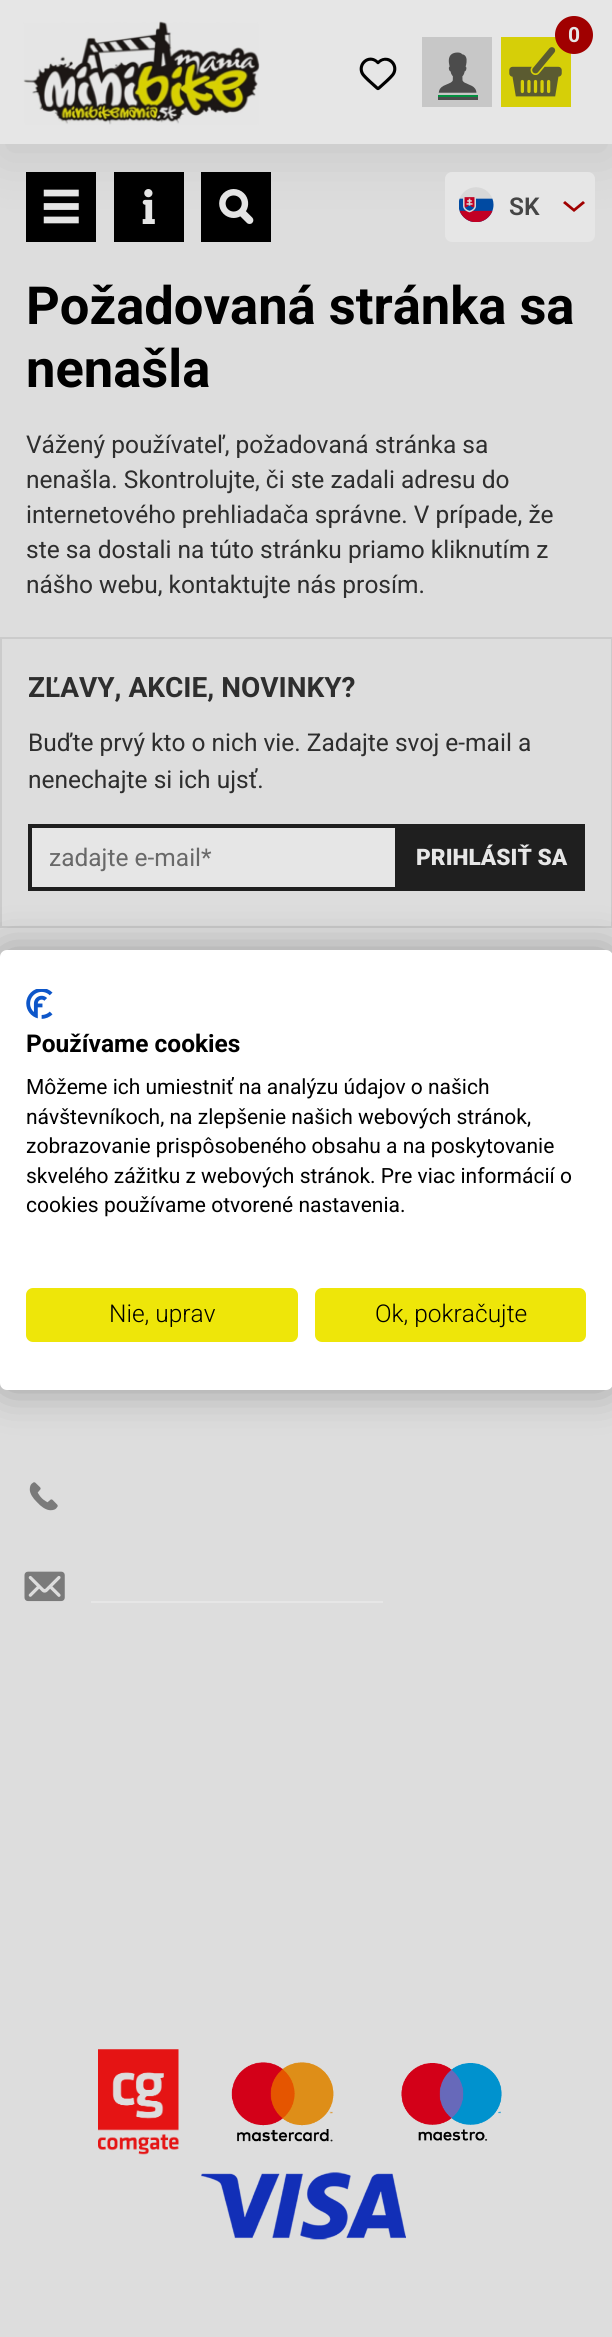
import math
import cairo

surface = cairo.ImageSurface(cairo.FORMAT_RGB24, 612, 2337)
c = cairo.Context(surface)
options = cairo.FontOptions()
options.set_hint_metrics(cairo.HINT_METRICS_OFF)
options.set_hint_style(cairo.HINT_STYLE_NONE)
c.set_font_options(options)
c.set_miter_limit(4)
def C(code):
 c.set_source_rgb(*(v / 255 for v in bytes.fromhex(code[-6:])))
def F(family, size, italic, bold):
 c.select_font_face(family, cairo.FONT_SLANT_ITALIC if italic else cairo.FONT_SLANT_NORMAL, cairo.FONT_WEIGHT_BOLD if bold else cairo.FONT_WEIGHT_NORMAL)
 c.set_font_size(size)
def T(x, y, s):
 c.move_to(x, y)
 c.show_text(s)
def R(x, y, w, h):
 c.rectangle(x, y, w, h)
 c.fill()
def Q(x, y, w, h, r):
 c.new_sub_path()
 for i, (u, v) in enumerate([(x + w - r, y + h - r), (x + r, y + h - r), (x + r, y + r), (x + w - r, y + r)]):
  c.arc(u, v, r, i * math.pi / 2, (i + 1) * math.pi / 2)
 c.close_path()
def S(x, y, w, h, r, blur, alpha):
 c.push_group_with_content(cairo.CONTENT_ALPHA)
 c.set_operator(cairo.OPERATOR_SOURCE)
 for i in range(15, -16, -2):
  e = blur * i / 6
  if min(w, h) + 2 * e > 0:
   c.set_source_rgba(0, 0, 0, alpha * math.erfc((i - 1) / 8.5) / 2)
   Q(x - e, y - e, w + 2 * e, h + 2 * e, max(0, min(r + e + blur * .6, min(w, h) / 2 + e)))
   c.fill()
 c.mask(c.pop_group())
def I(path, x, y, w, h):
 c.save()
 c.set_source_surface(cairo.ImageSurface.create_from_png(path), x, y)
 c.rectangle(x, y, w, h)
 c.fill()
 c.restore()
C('dddddd')
c.paint()
C('000000')
S(0,14,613,144,0,28,.1)
C('e6e6e6')
R(0,0,612,144)
I('1.png',23,21,237,104)
C('d6cf08')
R(501,37,70,70)
I('2.png',509,47,53,50)
C('a00000')
c.arc(574,35,19,0,2 * math.pi)
c.fill()
F('Roboto',21,0,1)
C('e6e6e6')
T(568,42,'0')
I('3.png',359,57,38,34)
C('c7c7c7')
R(422,37,70,70)
I('4.png',438,52,39,41)
C('029040')
R(438,95,40,2)
C('4d4d4d')
R(438,97,40,3)
C('000000')
R(26,172,70,70)
I('5.png',43,189,36,35)
R(114,172,70,70)
I('6.png',142,189,13,35)
R(201,172,70,70)
I('7.png',219,189,35,35)
C('e6e6e6')
Q(445,172,150,70,7)
c.fill()
I('8.png',459,187,35,35)
F('Roboto SemiBold',24.5,0,0)
C('454545')
T(509,215,'SK')
C('a00000')
c.new_path()
c.move_to(563,203)
c.line_to(565,201)
c.line_to(574,208.5)
c.line_to(583,201)
c.line_to(585,203)
c.line_to(574,212)
c.close_path()
c.fill()
F('Roboto',52.5,0,1)
C('000000')
T(26,324,'Požadovaná stránka sa')
T(26,387,'nenašla')
F('Roboto',24.5,0,0)
C('2e2e2e')
T(26,453,'Vážený používateľ, požadovaná stránka sa')
T(26,488,'nenašla. Skontrolujte, či ste zadali adresu do')
T(26,523,'internetového prehliadača správne. V prípade, že')
T(26,558,'ste sa dostali na túto stránku priamo kliknutím z')
T(26,593,'nášho webu, kontaktujte nás prosím.')
c.rectangle(1,638,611,289)
C('cbcbcb')
c.stroke()
F('Roboto',28,0,1)
C('2e2e2e')
T(28,697,'ZĽAVY, AKCIE, NOVINKY?')
F('Roboto',24.5,0,0)
T(28,751,'Buďte prvý kto o nich vie. Zadajte svoj e-mail a')
T(28,788,'nenechajte si ich ujsť.')
C('e6e6e6')
c.rectangle(30,826,367,63)
c.fill_preserve()
C('1f1f1f')
c.set_line_width(4)
c.stroke()
C('696969')
T(49,866,'zadajte e-mail*')
C('1f1f1f')
R(399,824,186,67)
F('Roboto Black',22.75,0,0)
C('e6e6e6')
T(416,865,'PRIHLÁSIŤ SA')
I('9.png',29,1482,29,29)
I('10.png',24,1571,41,31)
R(91,1601,292,2)
I('11.png',98,2049,81,106)
I('12.png',231,2062,103,80)
I('13.png',401,2063,101,78)
I('14.png',201,2172,205,68)
C('000000')
S(0,950,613,440,7,21,.3)
C('ffffff')
Q(0,950,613,440,7)
c.fill()
I('15.png',26,989,27,30)
F('Roboto',24.5,0,1)
C('000000')
T(26,1052,'Používame cookies')
F('Roboto',21,0,0)
T(26,1094,'Môžeme ich umiestniť na analýzu údajov o našich')
T(26,1124,'návštevníkoch, na zlepšenie našich webových stránok,')
T(26,1153,'zobrazovanie prispôsobeného obsahu a na poskytovanie')
T(26,1183,'skvelého zážitku z webových stránok. Pre viac informácií o')
T(26,1212,'cookies používame otvorené nastavenia.')
C('eee609')
Q(27,1289,270,52,6)
c.fill_preserve()
c.set_line_width(2)
c.stroke()
F('Roboto Light',24.5,0,0)
C('000000')
T(109,1322,'Nie, uprav')
C('eee609')
Q(316,1289,269,52,6)
c.fill_preserve()
c.stroke()
C('000000')
T(375,1322,'Ok, pokračujte')
surface.write_to_png('o.png')
